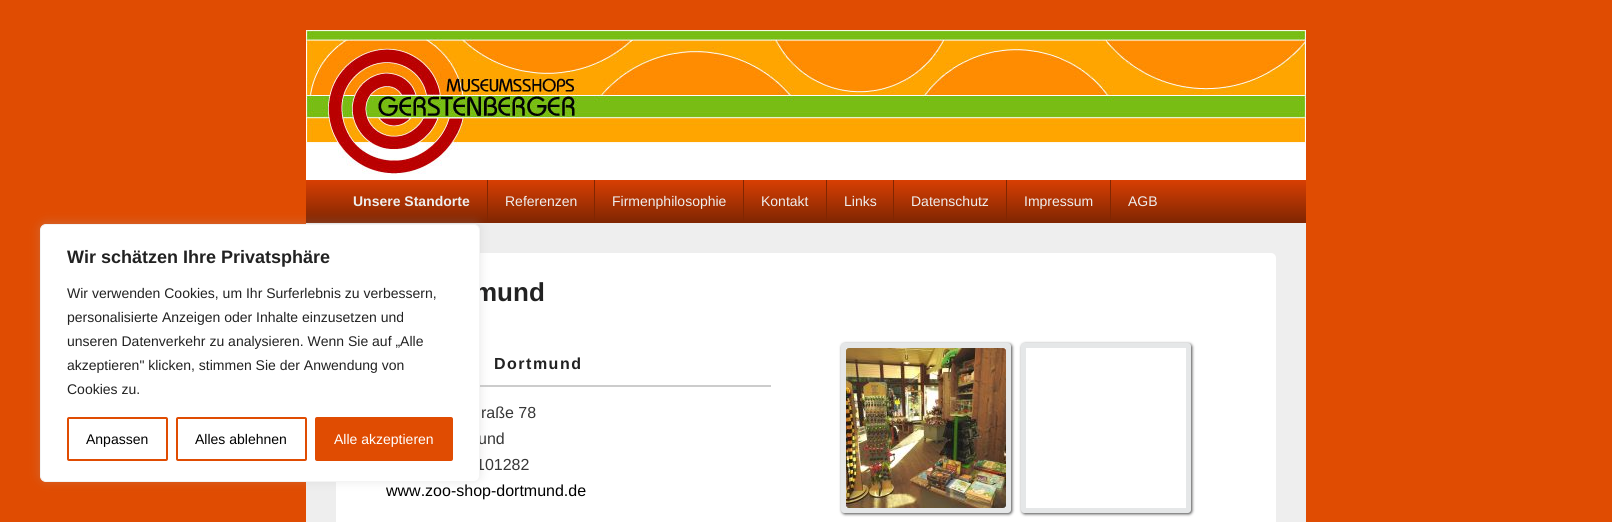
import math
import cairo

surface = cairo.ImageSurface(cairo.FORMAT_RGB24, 1612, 522)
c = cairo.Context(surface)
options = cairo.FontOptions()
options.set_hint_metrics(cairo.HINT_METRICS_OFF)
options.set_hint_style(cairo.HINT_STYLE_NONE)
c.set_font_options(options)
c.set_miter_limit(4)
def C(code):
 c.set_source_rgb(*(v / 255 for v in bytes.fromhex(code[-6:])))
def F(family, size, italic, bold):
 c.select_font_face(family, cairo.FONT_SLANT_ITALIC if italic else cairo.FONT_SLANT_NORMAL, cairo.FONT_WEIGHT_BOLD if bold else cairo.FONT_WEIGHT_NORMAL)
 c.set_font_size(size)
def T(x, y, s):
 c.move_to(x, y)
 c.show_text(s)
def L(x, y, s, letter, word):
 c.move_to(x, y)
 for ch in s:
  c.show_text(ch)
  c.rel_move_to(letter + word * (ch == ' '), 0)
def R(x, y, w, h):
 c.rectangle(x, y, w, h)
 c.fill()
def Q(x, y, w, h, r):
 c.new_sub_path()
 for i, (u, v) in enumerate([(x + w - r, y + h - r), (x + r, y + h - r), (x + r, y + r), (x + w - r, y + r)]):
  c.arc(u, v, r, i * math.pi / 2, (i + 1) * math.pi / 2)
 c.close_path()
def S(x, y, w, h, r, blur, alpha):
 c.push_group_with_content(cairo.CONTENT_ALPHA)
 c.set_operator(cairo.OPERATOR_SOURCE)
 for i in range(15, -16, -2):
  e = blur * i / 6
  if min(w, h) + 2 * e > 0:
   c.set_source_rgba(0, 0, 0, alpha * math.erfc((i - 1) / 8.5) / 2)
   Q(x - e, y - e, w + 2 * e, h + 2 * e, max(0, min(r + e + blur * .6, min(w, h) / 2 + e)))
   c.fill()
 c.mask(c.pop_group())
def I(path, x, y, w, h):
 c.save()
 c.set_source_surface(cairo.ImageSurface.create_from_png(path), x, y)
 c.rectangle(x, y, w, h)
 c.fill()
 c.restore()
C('e04c02')
c.paint()
C('eeeeee')
R(306,223,1000,299)
gradient = cairo.LinearGradient(806,180,806,222)
gradient.add_color_stop_rgba(0,0.847,0.247,0.012,1)
gradient.add_color_stop_rgba(1,0.502,0.149,0.008,1)
c.set_source(gradient)
R(306,180,1000,42)
C('802602')
R(306,222,1000,1)
R(487,180,1,42)
C('ffffff')
Q(336,253,940,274,5)
c.fill()
C('cccccc')
R(480,385,291,2)
C('acabab')
S(40,223,440,258,6,5,.3)
F('Liberation Sans',26,0,1)
C('222222')
T(474,301,'mund')
F('Liberation Sans',16,0,0)
C('373737')
T(478,444,'und')
T(476,470,'101282')
C('ffffff')
Q(40.5,224.5,439,257,5.5)
c.fill_preserve()
C('f4f4f4')
c.set_line_width(1)
c.stroke()
F('Liberation Sans',18,0,1)
C('222222')
T(67,263,'Wir schätzen Ihre Privatsphäre')
F('Liberation Sans',14,0,0)
T(67,298,'Wir verwenden Cookies, um Ihr Surferlebnis zu verbessern,')
T(67,322,'personalisierte Anzeigen oder Inhalte einzusetzen und')
T(67,346,'unseren Datenverkehr zu analysieren. Wenn Sie auf „Alle')
T(67,370,'akzeptieren" klicken, stimmen Sie der Anwendung von')
T(67,394,'Cookies zu.')
Q(68,418,99,42,1)
C('e04c02')
c.set_line_width(2)
c.stroke()
C('000000')
T(86,444,'Anpassen')
Q(177,418,129,42,1)
C('e04c02')
c.stroke()
C('000000')
T(195,444,'Alles ablehnen')
C('e04c02')
Q(316,418,136,42,1)
c.fill_preserve()
c.stroke()
C('ffffff')
T(334,444,'Alle akzeptieren')
R(306,174,1000,6)
I('1.png',306,30,1000,144)
F('Liberation Sans',14,0,1)
C('eeeeee')
T(353,206,'Unsere Standorte')
F('Liberation Sans',14,0,0)
T(505,206,'Referenzen')
C('802602')
R(594,180,1,42)
C('eeeeee')
T(612,206,'Firmenphilosophie')
C('802602')
R(743,180,1,42)
C('eeeeee')
T(761,206,'Kontakt')
C('802602')
R(826,180,1,42)
C('eeeeee')
T(844,206,'Links')
C('802602')
R(893,180,1,42)
C('eeeeee')
T(911,206,'Datenschutz')
C('802602')
R(1006,180,1,42)
C('eeeeee')
T(1024,206,'Impressum')
C('802602')
R(1110,180,1,42)
C('eeeeee')
T(1128,206,'AGB')
F('Liberation Sans',16,0,1)
C('222222')
L(494,369,'Dortmund',1.5,0)
F('Liberation Sans',16,0,0)
C('373737')
T(481,418,'raße 78')
C('000000')
T(386,496,'www.zoo-shop-dortmund.de')
C('4a4a4a')
S(842,344,170,170,3,1.5,1)
C('ffffff')
Q(843.5,345.5,165,165,.5)
c.fill_preserve()
C('e5e7e8')
c.set_line_width(5)
c.stroke()
I('2.png',846,348,160,160)
C('4a4a4a')
S(1022,344,170,170,3,1.5,1)
C('ffffff')
Q(1023.5,345.5,165,165,.5)
c.fill_preserve()
C('e5e7e8')
c.stroke()
surface.write_to_png('o.png')
